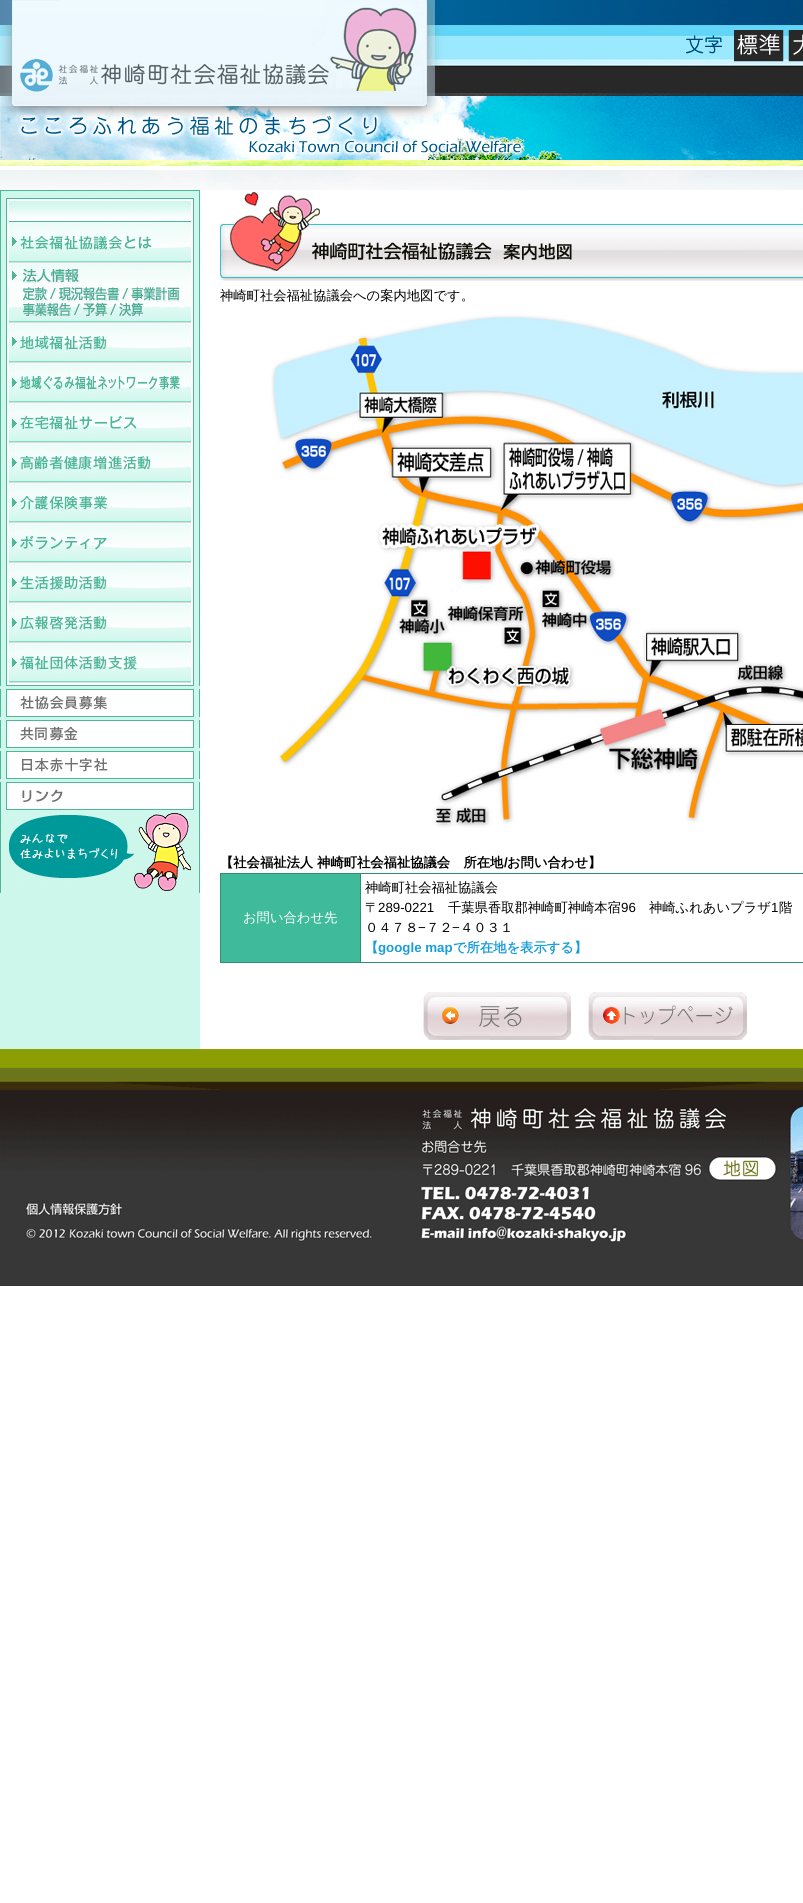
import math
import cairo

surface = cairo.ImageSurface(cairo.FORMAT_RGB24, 803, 1903)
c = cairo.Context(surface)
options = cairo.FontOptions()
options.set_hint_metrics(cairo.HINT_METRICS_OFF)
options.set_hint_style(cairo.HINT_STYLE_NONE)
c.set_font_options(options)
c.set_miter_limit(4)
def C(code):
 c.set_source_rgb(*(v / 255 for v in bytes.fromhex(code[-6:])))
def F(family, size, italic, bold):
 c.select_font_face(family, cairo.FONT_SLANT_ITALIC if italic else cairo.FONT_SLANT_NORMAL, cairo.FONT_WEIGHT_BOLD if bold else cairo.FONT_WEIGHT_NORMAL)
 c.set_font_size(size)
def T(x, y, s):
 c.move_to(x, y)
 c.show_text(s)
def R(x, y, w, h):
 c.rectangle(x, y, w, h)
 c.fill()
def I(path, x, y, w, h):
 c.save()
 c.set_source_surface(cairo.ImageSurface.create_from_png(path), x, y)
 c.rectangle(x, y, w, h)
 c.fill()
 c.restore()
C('ffffff')
c.paint()
C('d5f3fe')
R(0,0,435,106)
I('1.png',0,0,435,106)
I('2.png',435,0,246,106)
I('3.png',681,0,122,25)
I('4.png',681,25,53,41)
I('5.png',734,25,54,41)
I('6.png',788,25,15,41)
I('7.png',681,66,122,40)
I('8.png',0,106,803,84)
C('cef7ec')
R(0,686,200,363)
I('9.png',0,190,200,32)
I('10.png',0,222,200,40)
I('11.png',0,262,200,60)
I('12.png',0,322,200,40)
I('13.png',0,362,200,40)
I('14.png',0,402,200,40)
I('15.png',0,442,200,40)
I('16.png',0,482,200,40)
I('17.png',0,522,200,40)
I('18.png',0,562,200,40)
I('19.png',0,602,200,40)
I('20.png',0,642,200,44)
I('21.png',0,689,200,28)
I('22.png',0,720,200,28)
I('23.png',0,751,200,28)
I('24.png',0,782,200,28)
I('25.png',0,810,200,83)
I('26.png',220,192,583,89)
F('WenQuanYi Zen Hei Medium',13.3,0,0)
C('000000')
T(220,300,'神崎町社会福祉協議会への案内地図です。')
I('27.png',271,315,532,513)
F('WenQuanYi Zen Hei',13.3,0,1)
T(220,867,'【社会福祉法人 神崎町社会福祉協議会　所在地')
F('Liberation Sans',13.3,0,1)
T(504,867,'/')
F('WenQuanYi Zen Hei',13.3,0,1)
T(507,867,'お問い合わせ】')
C('308e76')
R(220,873,583,90)
C('3fbb9b')
R(221,874,139,88)
F('WenQuanYi Zen Hei Medium',13.3,0,0)
C('ffffff')
T(243,922,'お問い合わせ先')
R(361,874,442,88)
C('000000')
T(365,892,'神崎町社会福祉協議会')
T(365,912,'〒')
F('Liberation Sans',13.3,0,0)
T(378,912,'289-0221')
F('WenQuanYi Zen Hei Medium',13.3,0,0)
T(448,912,'千葉県香取郡神崎町神崎本宿')
F('Liberation Sans',13.3,0,0)
T(621,912,'96')
F('WenQuanYi Zen Hei Medium',13.3,0,0)
T(649,912,'神崎ふれあいプラザ')
F('Liberation Sans',13.3,0,0)
T(771,912,'1')
F('WenQuanYi Zen Hei Medium',13.3,0,0)
T(779,912,'階')
T(365,932,'０４７８')
F('Liberation Sans',13.3,0,0)
T(418,932,'−')
F('WenQuanYi Zen Hei Medium',13.3,0,0)
T(426,932,'７２')
F('Liberation Sans',13.3,0,0)
T(452,932,'−')
F('WenQuanYi Zen Hei Medium',13.3,0,0)
T(460,932,'４０３１')
F('WenQuanYi Zen Hei',13.3,0,1)
C('1a9dd9')
T(365,952,'【')
F('Liberation Sans',13.3,0,1)
T(378,952,'google map')
F('WenQuanYi Zen Hei',13.3,0,1)
T(453,952,'で所在地を表示する】')
I('28.png',423,992,148,48)
I('29.png',588,992,159,48)
I('30.png',0,1049,803,237)
surface.write_to_png('o.png')
